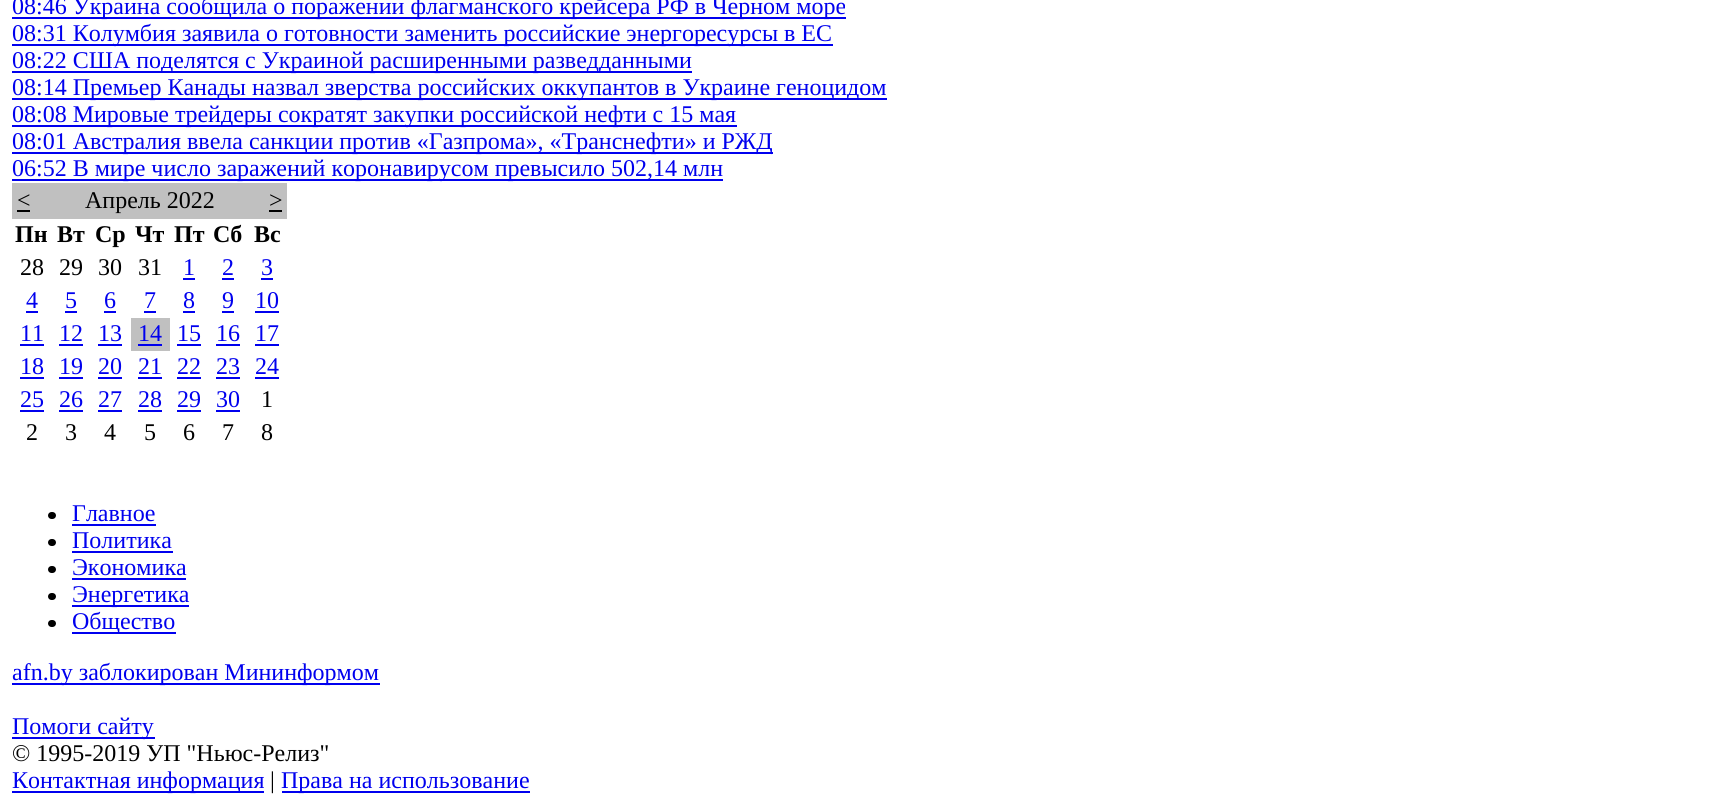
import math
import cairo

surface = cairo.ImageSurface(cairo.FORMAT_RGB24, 1726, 807)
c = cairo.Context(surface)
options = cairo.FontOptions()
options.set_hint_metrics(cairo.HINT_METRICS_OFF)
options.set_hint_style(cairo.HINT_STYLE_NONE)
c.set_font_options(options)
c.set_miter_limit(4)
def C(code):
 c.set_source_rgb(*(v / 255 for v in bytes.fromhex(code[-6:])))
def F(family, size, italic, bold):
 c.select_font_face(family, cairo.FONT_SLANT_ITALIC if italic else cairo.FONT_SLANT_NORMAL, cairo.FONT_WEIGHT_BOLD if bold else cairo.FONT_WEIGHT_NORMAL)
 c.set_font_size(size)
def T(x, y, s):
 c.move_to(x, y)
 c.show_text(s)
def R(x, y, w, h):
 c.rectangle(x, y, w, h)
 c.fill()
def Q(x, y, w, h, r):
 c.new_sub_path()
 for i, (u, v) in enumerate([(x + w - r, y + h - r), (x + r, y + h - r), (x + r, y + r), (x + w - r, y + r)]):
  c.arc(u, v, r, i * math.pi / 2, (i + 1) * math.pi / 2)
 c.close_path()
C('ffffff')
c.paint()
C('0000ee')
R(12,17,834,2)
F('Liberation Serif',24,0,0)
T(12,14,'08:46 Украина сообщила о поражении флагманского крейсера РФ в Черном море')
R(12,44,821,2)
T(12,41,'08:31 Колумбия заявила о готовности заменить российские энергоресурсы в ЕС')
R(12,71,680,2)
T(12,68,'08:22 США поделятся с Украиной расширенными разведданными')
R(12,98,875,2)
T(12,95,'08:14 Премьер Канады назвал зверства российских оккупантов в Украине геноцидом')
R(12,125,725,2)
T(12,122,'08:08 Мировые трейдеры сократят закупки российской нефти с 15 мая')
R(12,152,761,2)
T(12,149,'08:01 Австралия ввела санкции против «Газпрома», «Транснефти» и РЖД')
R(12,179,711,2)
T(12,176,'06:52 В мире число заражений коронавирусом превысило 502,14 млн')
C('c0c0c0')
R(12,183,275,36)
C('000000')
T(17,208,'<')
R(17,210,13,2)
T(85,208,'Апрель 2022')
T(269,208,'>')
R(269,210,13,2)
F('Liberation Serif',24,0,1)
T(15,242,'Пн')
T(57,242,'Вт')
T(95,242,'Ср')
T(135,242,'Чт')
T(174,242,'Пт')
T(213,242,'Сб')
T(254,242,'Вс')
F('Liberation Serif',24,0,0)
T(20,275,'28')
T(59,275,'29')
T(98,275,'30')
T(138,275,'31')
C('0000ee')
T(183,275,'1')
R(183,278,12,2)
T(222,275,'2')
R(222,278,12,2)
T(261,275,'3')
R(261,278,12,2)
T(26,308,'4')
R(26,311,12,2)
T(65,308,'5')
R(65,311,12,2)
T(104,308,'6')
R(104,311,12,2)
T(144,308,'7')
R(144,311,12,2)
T(183,308,'8')
R(183,311,12,2)
T(222,308,'9')
R(222,311,12,2)
T(255,308,'10')
R(255,311,24,2)
T(20,341,'11')
R(20,344,24,2)
T(59,341,'12')
R(59,344,24,2)
T(98,341,'13')
R(98,344,24,2)
C('c0c0c0')
R(131,318,39,33)
C('0000ee')
T(138,341,'14')
R(138,344,24,2)
T(177,341,'15')
R(177,344,24,2)
T(216,341,'16')
R(216,344,24,2)
T(255,341,'17')
R(255,344,24,2)
T(20,374,'18')
R(20,377,24,2)
T(59,374,'19')
R(59,377,24,2)
T(98,374,'20')
R(98,377,24,2)
T(138,374,'21')
R(138,377,24,2)
T(177,374,'22')
R(177,377,24,2)
T(216,374,'23')
R(216,377,24,2)
T(255,374,'24')
R(255,377,24,2)
T(20,407,'25')
R(20,410,24,2)
T(59,407,'26')
R(59,410,24,2)
T(98,407,'27')
R(98,410,24,2)
T(138,407,'28')
R(138,410,24,2)
T(177,407,'29')
R(177,410,24,2)
T(216,407,'30')
R(216,410,24,2)
C('000000')
T(261,407,'1')
T(26,440,'2')
T(65,440,'3')
T(104,440,'4')
T(144,440,'5')
T(183,440,'6')
T(222,440,'7')
T(261,440,'8')
Q(48,512,8,7,3.5)
c.fill()
C('0000ee')
T(72,521,'Главное')
R(72,524,84,2)
C('000000')
Q(48,539,8,7,3.5)
c.fill()
C('0000ee')
T(72,548,'Политика')
R(72,551,101,2)
C('000000')
Q(48,566,8,7,3.5)
c.fill()
C('0000ee')
T(72,575,'Экономика')
R(72,578,114,2)
C('000000')
Q(48,593,8,7,3.5)
c.fill()
C('0000ee')
R(72,605,117,2)
T(72,602,'Энергетика')
C('000000')
Q(48,620,8,7,3.5)
c.fill()
C('0000ee')
R(72,632,104,2)
T(72,629,'Общество')
R(12,683,368,2)
T(12,680,'afn.by заблокирован Мининформом')
R(12,737,143,2)
T(12,734,'Помоги сайту')
C('000000')
T(12,761,'© 1995-2019 УП "Ньюс-Релиз"')
C('0000ee')
R(12,791,252,2)
T(12,788,'Контактная информация')
C('000000')
T(270,788,'|')
C('0000ee')
R(282,791,248,2)
T(281,788,'Права на использование')
surface.write_to_png('o.png')
